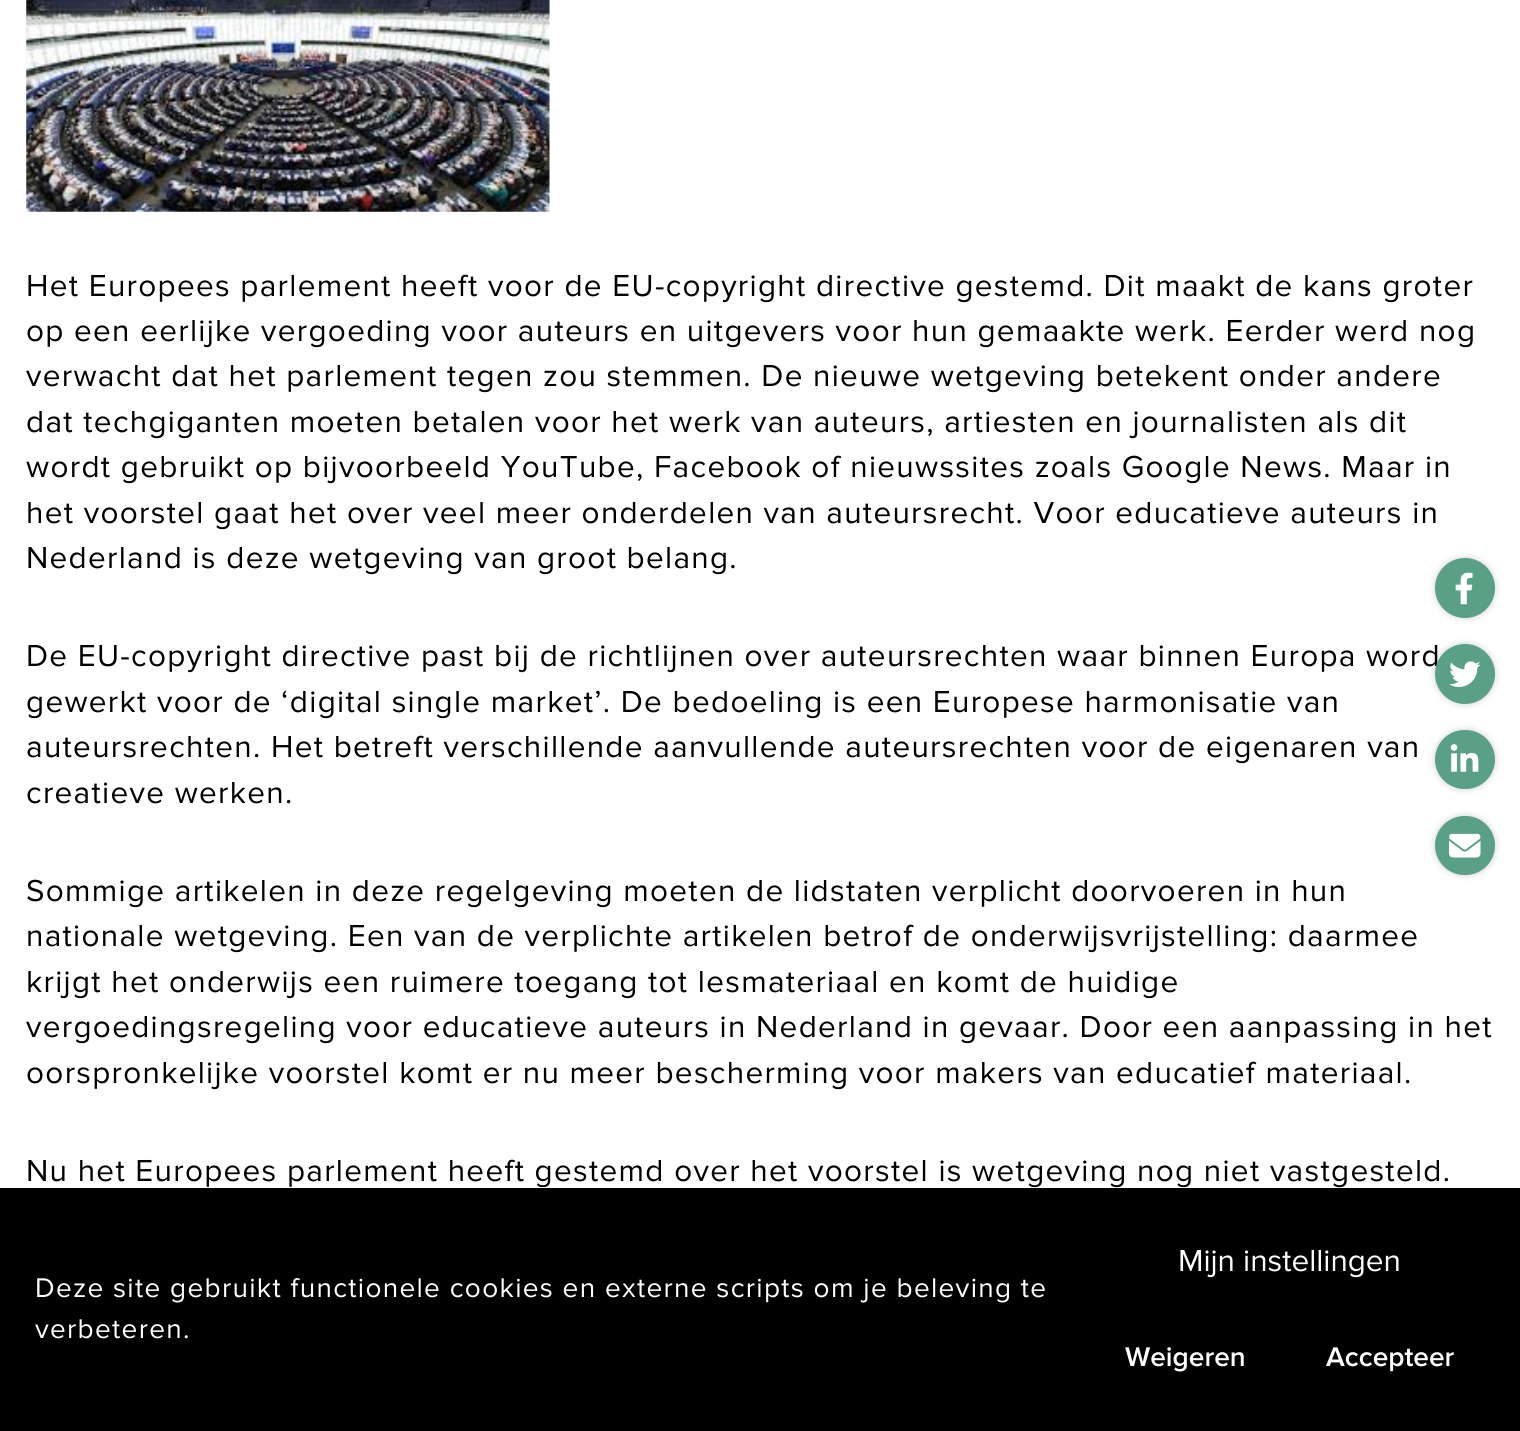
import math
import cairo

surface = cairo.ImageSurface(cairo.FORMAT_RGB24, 1520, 1431)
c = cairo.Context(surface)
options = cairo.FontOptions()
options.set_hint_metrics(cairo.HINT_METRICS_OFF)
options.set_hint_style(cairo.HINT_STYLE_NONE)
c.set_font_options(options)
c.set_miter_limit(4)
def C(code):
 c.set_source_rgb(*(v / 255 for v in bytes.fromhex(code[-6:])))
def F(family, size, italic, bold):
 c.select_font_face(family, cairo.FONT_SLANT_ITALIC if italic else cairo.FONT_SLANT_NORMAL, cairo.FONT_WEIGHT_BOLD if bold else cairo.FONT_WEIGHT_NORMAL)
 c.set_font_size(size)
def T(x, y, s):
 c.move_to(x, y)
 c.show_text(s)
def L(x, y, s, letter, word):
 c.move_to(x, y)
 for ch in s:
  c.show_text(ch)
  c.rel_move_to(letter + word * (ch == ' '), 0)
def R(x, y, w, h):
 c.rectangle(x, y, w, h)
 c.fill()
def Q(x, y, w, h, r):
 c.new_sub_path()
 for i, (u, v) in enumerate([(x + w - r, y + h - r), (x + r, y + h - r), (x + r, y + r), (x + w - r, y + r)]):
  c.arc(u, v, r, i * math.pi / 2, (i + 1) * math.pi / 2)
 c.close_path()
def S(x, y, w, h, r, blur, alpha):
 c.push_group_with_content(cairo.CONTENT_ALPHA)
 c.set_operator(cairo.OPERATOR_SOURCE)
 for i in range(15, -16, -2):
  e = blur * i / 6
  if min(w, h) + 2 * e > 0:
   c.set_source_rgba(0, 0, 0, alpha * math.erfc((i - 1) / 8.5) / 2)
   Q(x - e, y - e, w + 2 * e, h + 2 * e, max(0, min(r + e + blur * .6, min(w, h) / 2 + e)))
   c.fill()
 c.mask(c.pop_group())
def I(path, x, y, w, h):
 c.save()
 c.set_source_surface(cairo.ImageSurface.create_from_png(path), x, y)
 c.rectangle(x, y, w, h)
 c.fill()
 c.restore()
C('ffffff')
c.paint()
I('1.png',26,0,524,212)
F('Proxima Nova',31.5,0,0)
C('000000')
L(26,296,'Het Europees parlement heeft voor de EU-copyright directive gestemd. Dit maakt de kans groter',1.3,0)
L(26,341,'op een eerlijke vergoeding voor auteurs en uitgevers voor hun gemaakte werk. Eerder werd nog',1.3,0)
L(26,386,'verwacht dat het parlement tegen zou stemmen. De nieuwe wetgeving betekent onder andere',1.3,0)
L(26,432,'dat techgiganten moeten betalen voor het werk van auteurs, artiesten en journalisten als dit',1.3,0)
L(26,477,'wordt gebruikt op bijvoorbeeld YouTube, Facebook of nieuwssites zoals Google News. Maar in',1.3,0)
L(26,523,'het voorstel gaat het over veel meer onderdelen van auteursrecht. Voor educatieve auteurs in',1.3,0)
L(26,568,'Nederland is deze wetgeving van groot belang.',1.3,0)
L(26,666,'De EU-copyright directive past bij de richtlijnen over auteursrechten waar binnen Europa word',1.3,0)
L(26,712,'gewerkt voor de ‘digital single market’. De bedoeling is een Europese harmonisatie van',1.3,0)
L(26,757,'auteursrechten. Het betreft verschillende aanvullende auteursrechten voor de eigenaren van',1.3,0)
L(26,803,'creatieve werken.',1.3,0)
L(26,901,'Sommige artikelen in deze regelgeving moeten de lidstaten verplicht doorvoeren in hun',1.3,0)
L(26,946,'nationale wetgeving. Een van de verplichte artikelen betrof de onderwijsvrijstelling: daarmee',1.3,0)
L(26,992,'krijgt het onderwijs een ruimere toegang tot lesmateriaal en komt de huidige',1.3,0)
L(26,1037,'vergoedingsregeling voor educatieve auteurs in Nederland in gevaar. Door een aanpassing in het',1.3,0)
L(26,1083,'oorspronkelijke voorstel komt er nu meer bescherming voor makers van educatief materiaal.',1.3,0)
L(26,1181,'Nu het Europees parlement heeft gestemd over het voorstel is wetgeving nog niet vastgesteld.',1.3,0)
C('000000')
S(1435,558,60,60,30,3.5,.2)
C('5aa087')
c.arc(1465,588,28,0,2 * math.pi)
c.fill_preserve()
c.set_line_width(4)
c.stroke()
I('2.png',1455,572,18,33)
C('000000')
S(1435,644,60,60,30,3.5,.2)
C('5aa087')
c.arc(1465,674,28,0,2 * math.pi)
c.fill_preserve()
c.stroke()
I('3.png',1449,661,32,26)
C('000000')
S(1435,730,60,59,29.5,3.5,.2)
C('5aa087')
Q(1437,732,56,55,27.5)
c.fill_preserve()
c.stroke()
I('4.png',1450,744,29,28)
C('000000')
S(1435,816,60,59,29.5,3.5,.2)
C('5aa087')
Q(1437,818,56,55,27.5)
c.fill_preserve()
c.stroke()
I('5.png',1449,833,32,25)
C('000000')
R(0,1188,1520,243)
F('Proxima Nova',28,0,0)
C('ffffff')
L(35,1297,'Deze site gebruikt functionele cookies en externe scripts om je beleving te',1.3,0)
L(35,1338,'verbeteren.',1.3,0)
F('Proxima Nova',31.5,0,0)
T(1178,1271,'Mijn instellingen')
F('Proxima Nova SemiBold',28,0,0)
T(1125,1366,'Weigeren')
T(1326,1366,'Accepteer')
surface.write_to_png('o.png')
